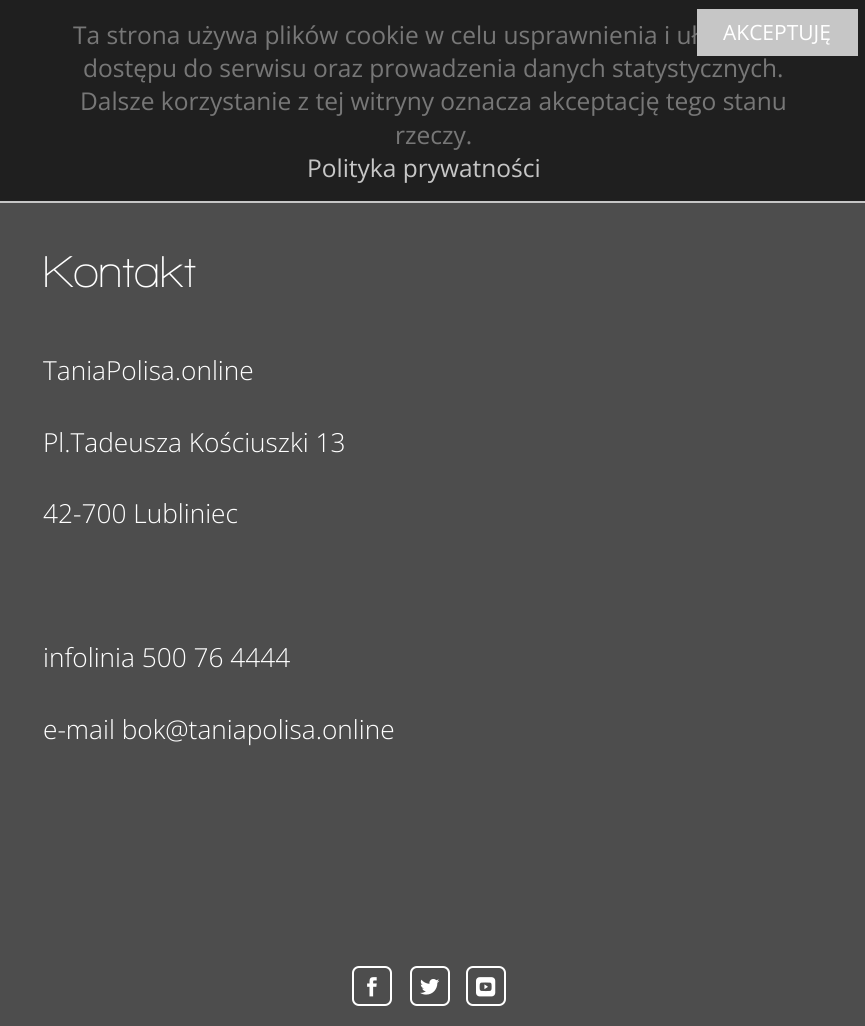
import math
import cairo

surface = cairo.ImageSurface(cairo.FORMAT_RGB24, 865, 1026)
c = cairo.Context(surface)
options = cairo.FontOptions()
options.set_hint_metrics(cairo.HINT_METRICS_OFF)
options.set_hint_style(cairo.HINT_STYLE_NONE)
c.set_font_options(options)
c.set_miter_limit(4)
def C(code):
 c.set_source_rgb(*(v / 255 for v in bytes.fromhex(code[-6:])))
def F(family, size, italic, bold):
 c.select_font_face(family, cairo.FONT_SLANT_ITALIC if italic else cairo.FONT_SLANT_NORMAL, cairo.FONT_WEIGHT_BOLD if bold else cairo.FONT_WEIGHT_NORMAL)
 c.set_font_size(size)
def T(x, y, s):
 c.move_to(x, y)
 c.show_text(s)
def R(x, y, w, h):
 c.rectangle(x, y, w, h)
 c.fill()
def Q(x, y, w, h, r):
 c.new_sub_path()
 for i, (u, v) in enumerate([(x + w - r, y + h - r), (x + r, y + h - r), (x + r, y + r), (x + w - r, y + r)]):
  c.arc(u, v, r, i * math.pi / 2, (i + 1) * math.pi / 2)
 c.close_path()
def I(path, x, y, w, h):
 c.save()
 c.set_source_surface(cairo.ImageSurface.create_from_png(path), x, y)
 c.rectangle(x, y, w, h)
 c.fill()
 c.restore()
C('4d4d4d')
c.paint()
C('1f1f1f')
R(0,0,865,201)
C('c6c6c6')
R(0,201,865,2)
F('Open Sans',24.5,0,0)
C('777777')
T(73,44,'Ta strona używa plików cookie w celu usprawnienia i uł')
C('c6c6c6')
R(697,9,161,47)
F('Open Sans',21,0,0)
C('ffffff')
T(723,40,'AKCEPTUJĘ')
F('Open Sans',24.5,0,0)
C('777777')
T(83,77,'dostępu do serwisu oraz prowadzenia danych statystycznych.')
T(80,110,'Dalsze korzystanie z tej witryny oznacza akceptację tego stanu')
T(395,144,'rzeczy.')
C('c6c6c6')
T(307,177,'Polityka prywatności')
F('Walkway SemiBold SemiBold',45.5,0,0)
C('ffffff')
T(43,287,'Kontakt')
F('Open Sans Light',26.25,0,0)
T(43,380,'TaniaPolisa.online')
T(43,452,'Pl.Tadeusza Kościuszki 13')
T(43,523,'42-700 Lubliniec')
T(43,667,'infolinia 500 76 4444')
T(43,739,'e-mail bok@taniapolisa.online')
Q(353,967,38,38,6)
c.stroke()
I('1.png',367,977,10,20)
Q(411,967,38,38,6)
c.stroke()
I('2.png',420,979,20,16)
Q(467,967,38,38,6)
c.stroke()
I('3.png',476,977,20,20)
surface.write_to_png('o.png')
